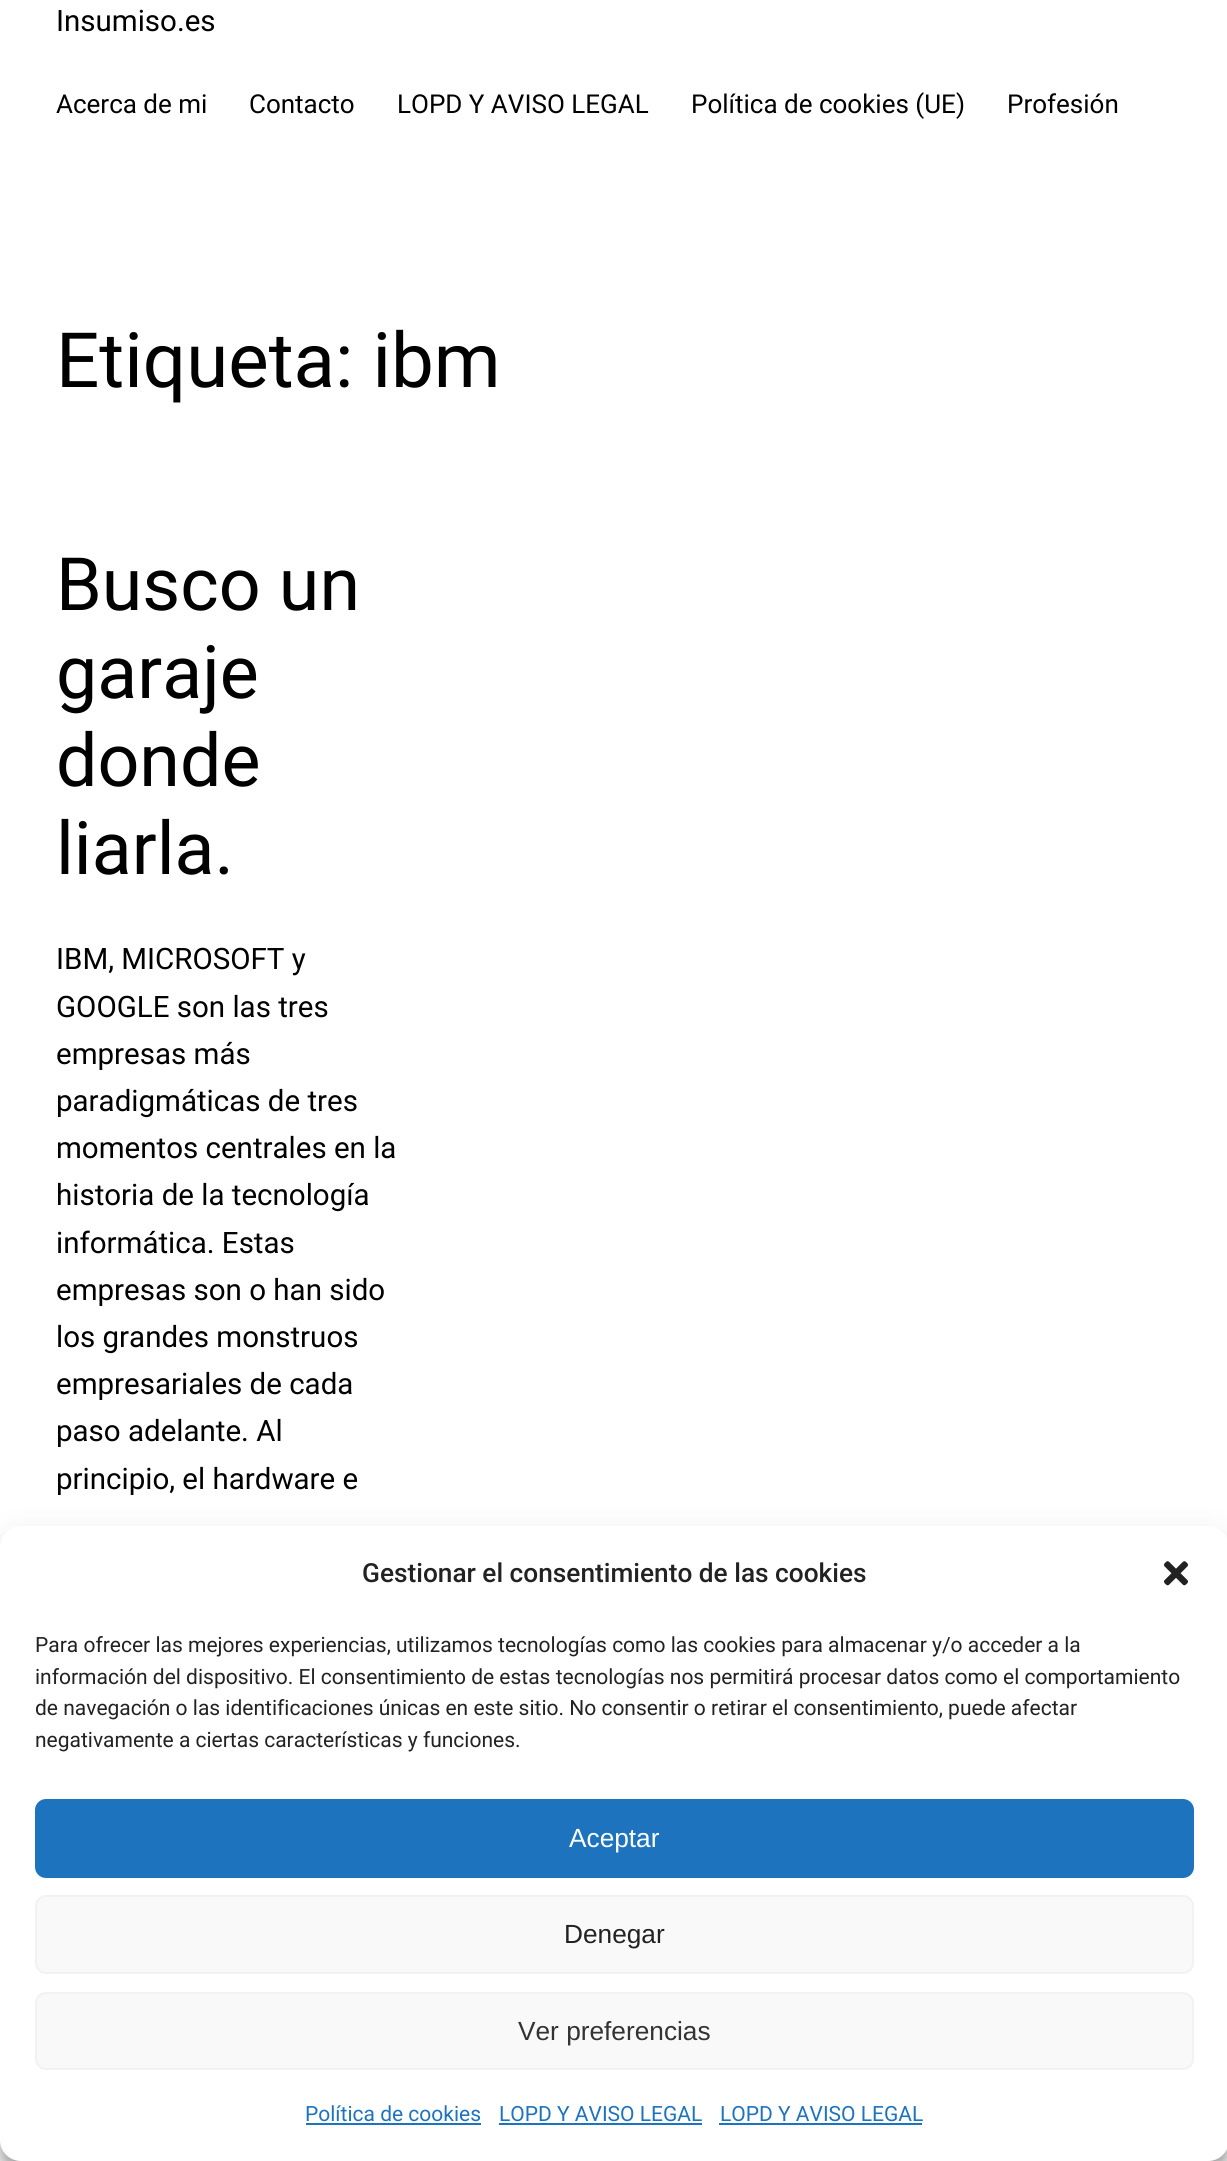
import math
import cairo

surface = cairo.ImageSurface(cairo.FORMAT_RGB24, 1227, 2161)
c = cairo.Context(surface)
options = cairo.FontOptions()
options.set_hint_metrics(cairo.HINT_METRICS_OFF)
options.set_hint_style(cairo.HINT_STYLE_NONE)
c.set_font_options(options)
c.set_miter_limit(4)
def C(code):
 c.set_source_rgb(*(v / 255 for v in bytes.fromhex(code[-6:])))
def F(family, size, italic, bold):
 c.select_font_face(family, cairo.FONT_SLANT_ITALIC if italic else cairo.FONT_SLANT_NORMAL, cairo.FONT_WEIGHT_BOLD if bold else cairo.FONT_WEIGHT_NORMAL)
 c.set_font_size(size)
def T(x, y, s):
 c.move_to(x, y)
 c.show_text(s)
def R(x, y, w, h):
 c.rectangle(x, y, w, h)
 c.fill()
def Q(x, y, w, h, r):
 c.new_sub_path()
 for i, (u, v) in enumerate([(x + w - r, y + h - r), (x + r, y + h - r), (x + r, y + r), (x + w - r, y + r)]):
  c.arc(u, v, r, i * math.pi / 2, (i + 1) * math.pi / 2)
 c.close_path()
def S(x, y, w, h, r, blur, alpha):
 c.push_group_with_content(cairo.CONTENT_ALPHA)
 c.set_operator(cairo.OPERATOR_SOURCE)
 for i in range(15, -16, -2):
  e = blur * i / 6
  if min(w, h) + 2 * e > 0:
   c.set_source_rgba(0, 0, 0, alpha * math.erfc((i - 1) / 8.5) / 2)
   Q(x - e, y - e, w + 2 * e, h + 2 * e, max(0, min(r + e + blur * .6, min(w, h) / 2 + e)))
   c.fill()
 c.mask(c.pop_group())
def I(path, x, y, w, h):
 c.save()
 c.set_source_surface(cairo.ImageSurface.create_from_png(path), x, y)
 c.rectangle(x, y, w, h)
 c.fill()
 c.restore()
C('ffffff')
c.paint()
F('Roboto',29.5,0,0)
C('000000')
T(56,31,'Insumiso.es')
F('Roboto',26,0,0)
T(56,113,'Acerca de mi')
T(249,113,'Contacto')
T(397,113,'LOPD Y AVISO LEGAL')
T(691,113,'Política de cookies (UE)')
T(1007,113,'Profesión')
F('Roboto',76.25,0,0)
T(56,387,'Etiqueta: ibm')
F('Roboto',73.5,0,0)
T(56,610,'Busco un')
T(56,698,'garaje')
T(56,786,'donde')
T(56,874,'liarla.')
F('Roboto',29.5,0,0)
T(56,969,'IBM, MICROSOFT y')
T(56,1017,'GOOGLE son las tres')
T(56,1064,'empresas más')
T(56,1111,'paradigmáticas de tres')
T(56,1158,'momentos centrales en la')
T(56,1205,'historia de la tecnología')
T(56,1253,'informática. Estas')
T(56,1300,'empresas son o han sido')
T(56,1347,'los grandes monstruos')
T(56,1394,'empresariales de cada')
T(56,1441,'paso adelante. Al')
T(56,1489,'principio, el hardware e')
C('000000')
S(0,1537,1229,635,21,5,.23)
S(0,1544,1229,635,21,17.5,.19)
C('ffffff')
Q(0,1526,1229,635,21)
c.fill()
F('Roboto Medium',26.25,0,0)
C('222222')
T(362,1582,'Gestionar el consentimiento de las cookies')
I('1.png',1164,1561,24,25)
F('Roboto',21,0,0)
T(35,1652,'Para ofrecer las mejores experiencias, utilizamos tecnologías como las cookies para almacenar y/o acceder a la')
T(35,1684,'información del dispositivo. El consentimiento de estas tecnologías nos permitirá procesar datos como el comportamiento')
T(35,1715,'de navegación o las identificaciones únicas en este sitio. No consentir o retirar el consentimiento, puede afectar')
T(35,1747,'negativamente a ciertas características y funciones.')
C('1e73be')
Q(36,1800,1157,77,10)
c.fill_preserve()
c.stroke()
F('Liberation Sans',26.25,0,0)
C('ffffff')
T(569,1847,'Aceptar')
C('f9f9f9')
Q(36,1896,1157,77,10)
c.fill_preserve()
C('f2f2f2')
c.stroke()
C('222222')
T(564,1943,'Denegar')
C('f9f9f9')
Q(36,1993,1157,76,10)
c.fill_preserve()
C('f2f2f2')
c.stroke()
C('333333')
T(518,2040,'Ver preferencias')
F('Roboto',21,0,0)
C('1e73be')
T(305,2121,'Política de cookies')
R(306,2123,175,2)
T(499,2121,'LOPD Y AVISO LEGAL')
R(499,2123,203,2)
T(720,2121,'LOPD Y AVISO LEGAL')
R(719,2123,203,2)
surface.write_to_png('o.png')
